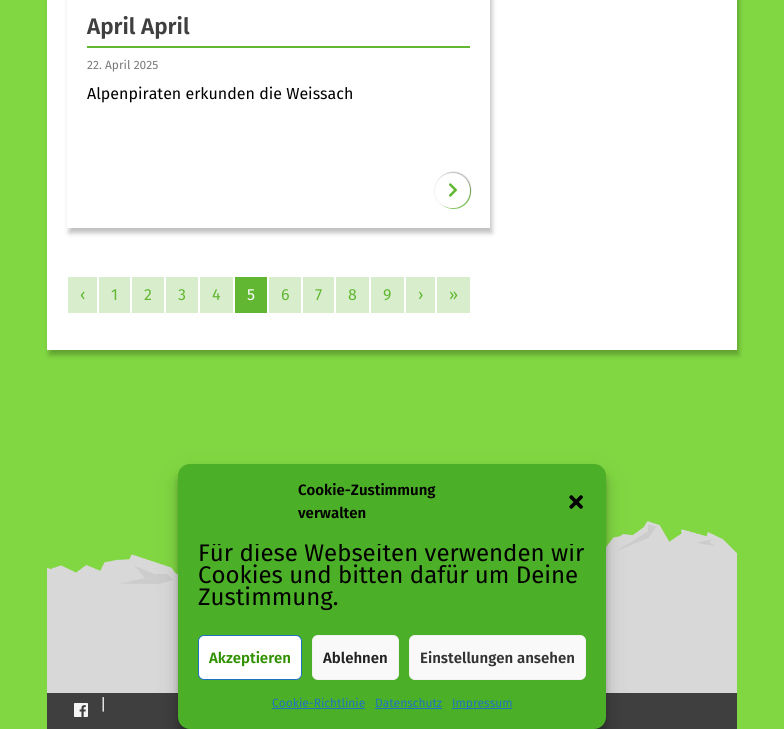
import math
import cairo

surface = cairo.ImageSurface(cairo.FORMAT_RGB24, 784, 729)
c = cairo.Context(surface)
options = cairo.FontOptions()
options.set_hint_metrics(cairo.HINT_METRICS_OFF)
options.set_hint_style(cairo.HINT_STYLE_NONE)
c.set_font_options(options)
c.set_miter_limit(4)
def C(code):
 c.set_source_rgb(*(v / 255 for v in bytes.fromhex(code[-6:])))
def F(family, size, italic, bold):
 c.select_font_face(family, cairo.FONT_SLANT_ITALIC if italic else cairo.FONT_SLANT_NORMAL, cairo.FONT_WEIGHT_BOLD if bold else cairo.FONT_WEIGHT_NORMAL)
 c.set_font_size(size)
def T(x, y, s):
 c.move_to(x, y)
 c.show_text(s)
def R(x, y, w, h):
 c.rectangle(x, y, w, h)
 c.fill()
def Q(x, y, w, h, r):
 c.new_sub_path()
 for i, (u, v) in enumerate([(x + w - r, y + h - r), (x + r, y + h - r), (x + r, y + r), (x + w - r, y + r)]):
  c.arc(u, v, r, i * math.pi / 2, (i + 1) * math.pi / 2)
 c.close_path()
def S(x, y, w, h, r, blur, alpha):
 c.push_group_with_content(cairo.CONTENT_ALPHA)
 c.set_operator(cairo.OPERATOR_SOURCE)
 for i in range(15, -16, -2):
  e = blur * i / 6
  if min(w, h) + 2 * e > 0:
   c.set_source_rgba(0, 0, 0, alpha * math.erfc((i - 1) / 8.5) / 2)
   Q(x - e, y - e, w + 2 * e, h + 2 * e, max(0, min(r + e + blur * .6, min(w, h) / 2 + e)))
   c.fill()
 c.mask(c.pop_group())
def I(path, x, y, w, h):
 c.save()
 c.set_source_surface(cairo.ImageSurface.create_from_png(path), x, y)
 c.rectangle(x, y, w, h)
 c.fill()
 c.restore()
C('81d742')
c.paint()
C('000000')
S(49,-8,690,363,0,2.5,.25)
C('ffffff')
R(47,0,690,350)
c.save()
c.set_fill_rule(cairo.FILL_RULE_EVEN_ODD)
c.new_path()
c.move_to(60,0)
c.line_to(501,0)
c.line_to(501,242)
c.line_to(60,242)
c.close_path()
c.move_to(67,-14)
c.line_to(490,-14)
c.line_to(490,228)
c.line_to(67,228)
c.close_path()
c.clip()
C('000000')
S(69,-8,423,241,0,2.5,.25)
c.restore()
C('61b732')
R(87,46,383,2)
F('Fira Sans SemiBold',22.5,0,0)
C('3f3f3f')
T(87,34,'April April')
F('Fira Sans',12,0,0)
C('7a7a7a')
T(87,69,'22. April 2025')
F('Fira Sans',16,0,0)
C('000000')
T(87,99,'Alpenpiraten erkunden die Weissach')
C('89c965')
c.new_path()
c.move_to(440.5,203.5)
c.curve_to(447.5,210.5,459,211,466,204)
c.curve_to(473,197,472.5,185.5,465.5,178.5)
c.curve_to(471.5,185.5,471.5,196.5,465,203)
c.curve_to(458.5,209.5,447.5,209.5,440.5,203.5)
c.close_path()
c.fill()
C('000000')
S(436,172,35,35,17.5,.5,.25)
S(434,173,35,35,17.5,.5,.05)
C('ffffff')
c.arc(452.5,190.5,17.5,0,2 * math.pi)
c.fill()
I('1.png',448,183,10,14)
C('d8edcc')
R(68,277,29,36)
C('61b732')
T(80,300,'‹')
C('d8edcc')
R(99,277,31,36)
C('61b732')
T(111,300,'1')
C('d8edcc')
R(132,277,32,36)
C('61b732')
T(144,300,'2')
C('d8edcc')
R(166,277,32,36)
C('61b732')
T(178,300,'3')
C('d8edcc')
R(200,277,33,36)
C('61b732')
T(212,300,'4')
R(235,277,32,36)
C('ffffff')
T(247,300,'5')
C('d8edcc')
R(269,277,32,36)
C('61b732')
T(281,300,'6')
C('d8edcc')
R(303,277,31,36)
C('61b732')
T(315,300,'7')
C('d8edcc')
R(336,277,33,36)
C('61b732')
T(348,300,'8')
C('d8edcc')
R(371,277,33,36)
C('61b732')
T(383,300,'9')
C('d8edcc')
R(406,277,29,36)
C('61b732')
T(418,300,'›')
C('d8edcc')
R(437,277,33,36)
C('61b732')
T(449,300,'»')
I('2.png',47,521,690,75)
C('d8d8d8')
R(47,596,690,97)
C('3f3f3f')
R(47,693,690,36)
I('3.png',74,703,14,14)
C('f4f4f4')
T(100,710,'|')
C('000000')
S(178,470,428,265,12,3,.23)
S(178,474,428,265,12,10,.19)
C('4caf28')
Q(178,464,428,265,12)
c.fill()
F('Fira Sans SemiBold',15,0,0)
C('000000')
T(298,495,'Cookie-Zustimmung')
T(298,518,'verwalten')
I('4.png',569,495,14,14)
c.save()
c.rectangle(198,544,388,71)
c.clip()
F('Fira Sans',24,0,0)
T(198,561,'Für diese Webseiten verwenden wir')
c.restore()
F('Fira Sans',24,0,0)
T(198,583,'Cookies und bitten dafür um Deine')
T(198,605,'Zustimmung.')
C('ffffff')
Q(198.5,635.5,103,44,5.5)
c.fill_preserve()
C('1e73be')
c.set_line_width(1)
c.stroke()
F('Fira Sans SemiBold',15,0,0)
C('309100')
T(209,663,'Akzeptieren')
C('f9f9f9')
Q(312.5,635.5,86,44,5.5)
c.fill_preserve()
C('f2f2f2')
c.stroke()
C('222222')
T(323,663,'Ablehnen')
C('f9f9f9')
Q(409.5,635.5,176,44,5.5)
c.fill_preserve()
C('f2f2f2')
c.stroke()
C('333333')
T(420,663,'Einstellungen ansehen')
F('Fira Sans',12,0,0)
C('1e73be')
T(272,707,'Cookie-Richtlinie')
R(272,708,93,1)
T(375,707,'Datenschutz')
R(375,708,67,1)
R(452,708,60,1)
T(452,707,'Impressum')
surface.write_to_png('o.png')
